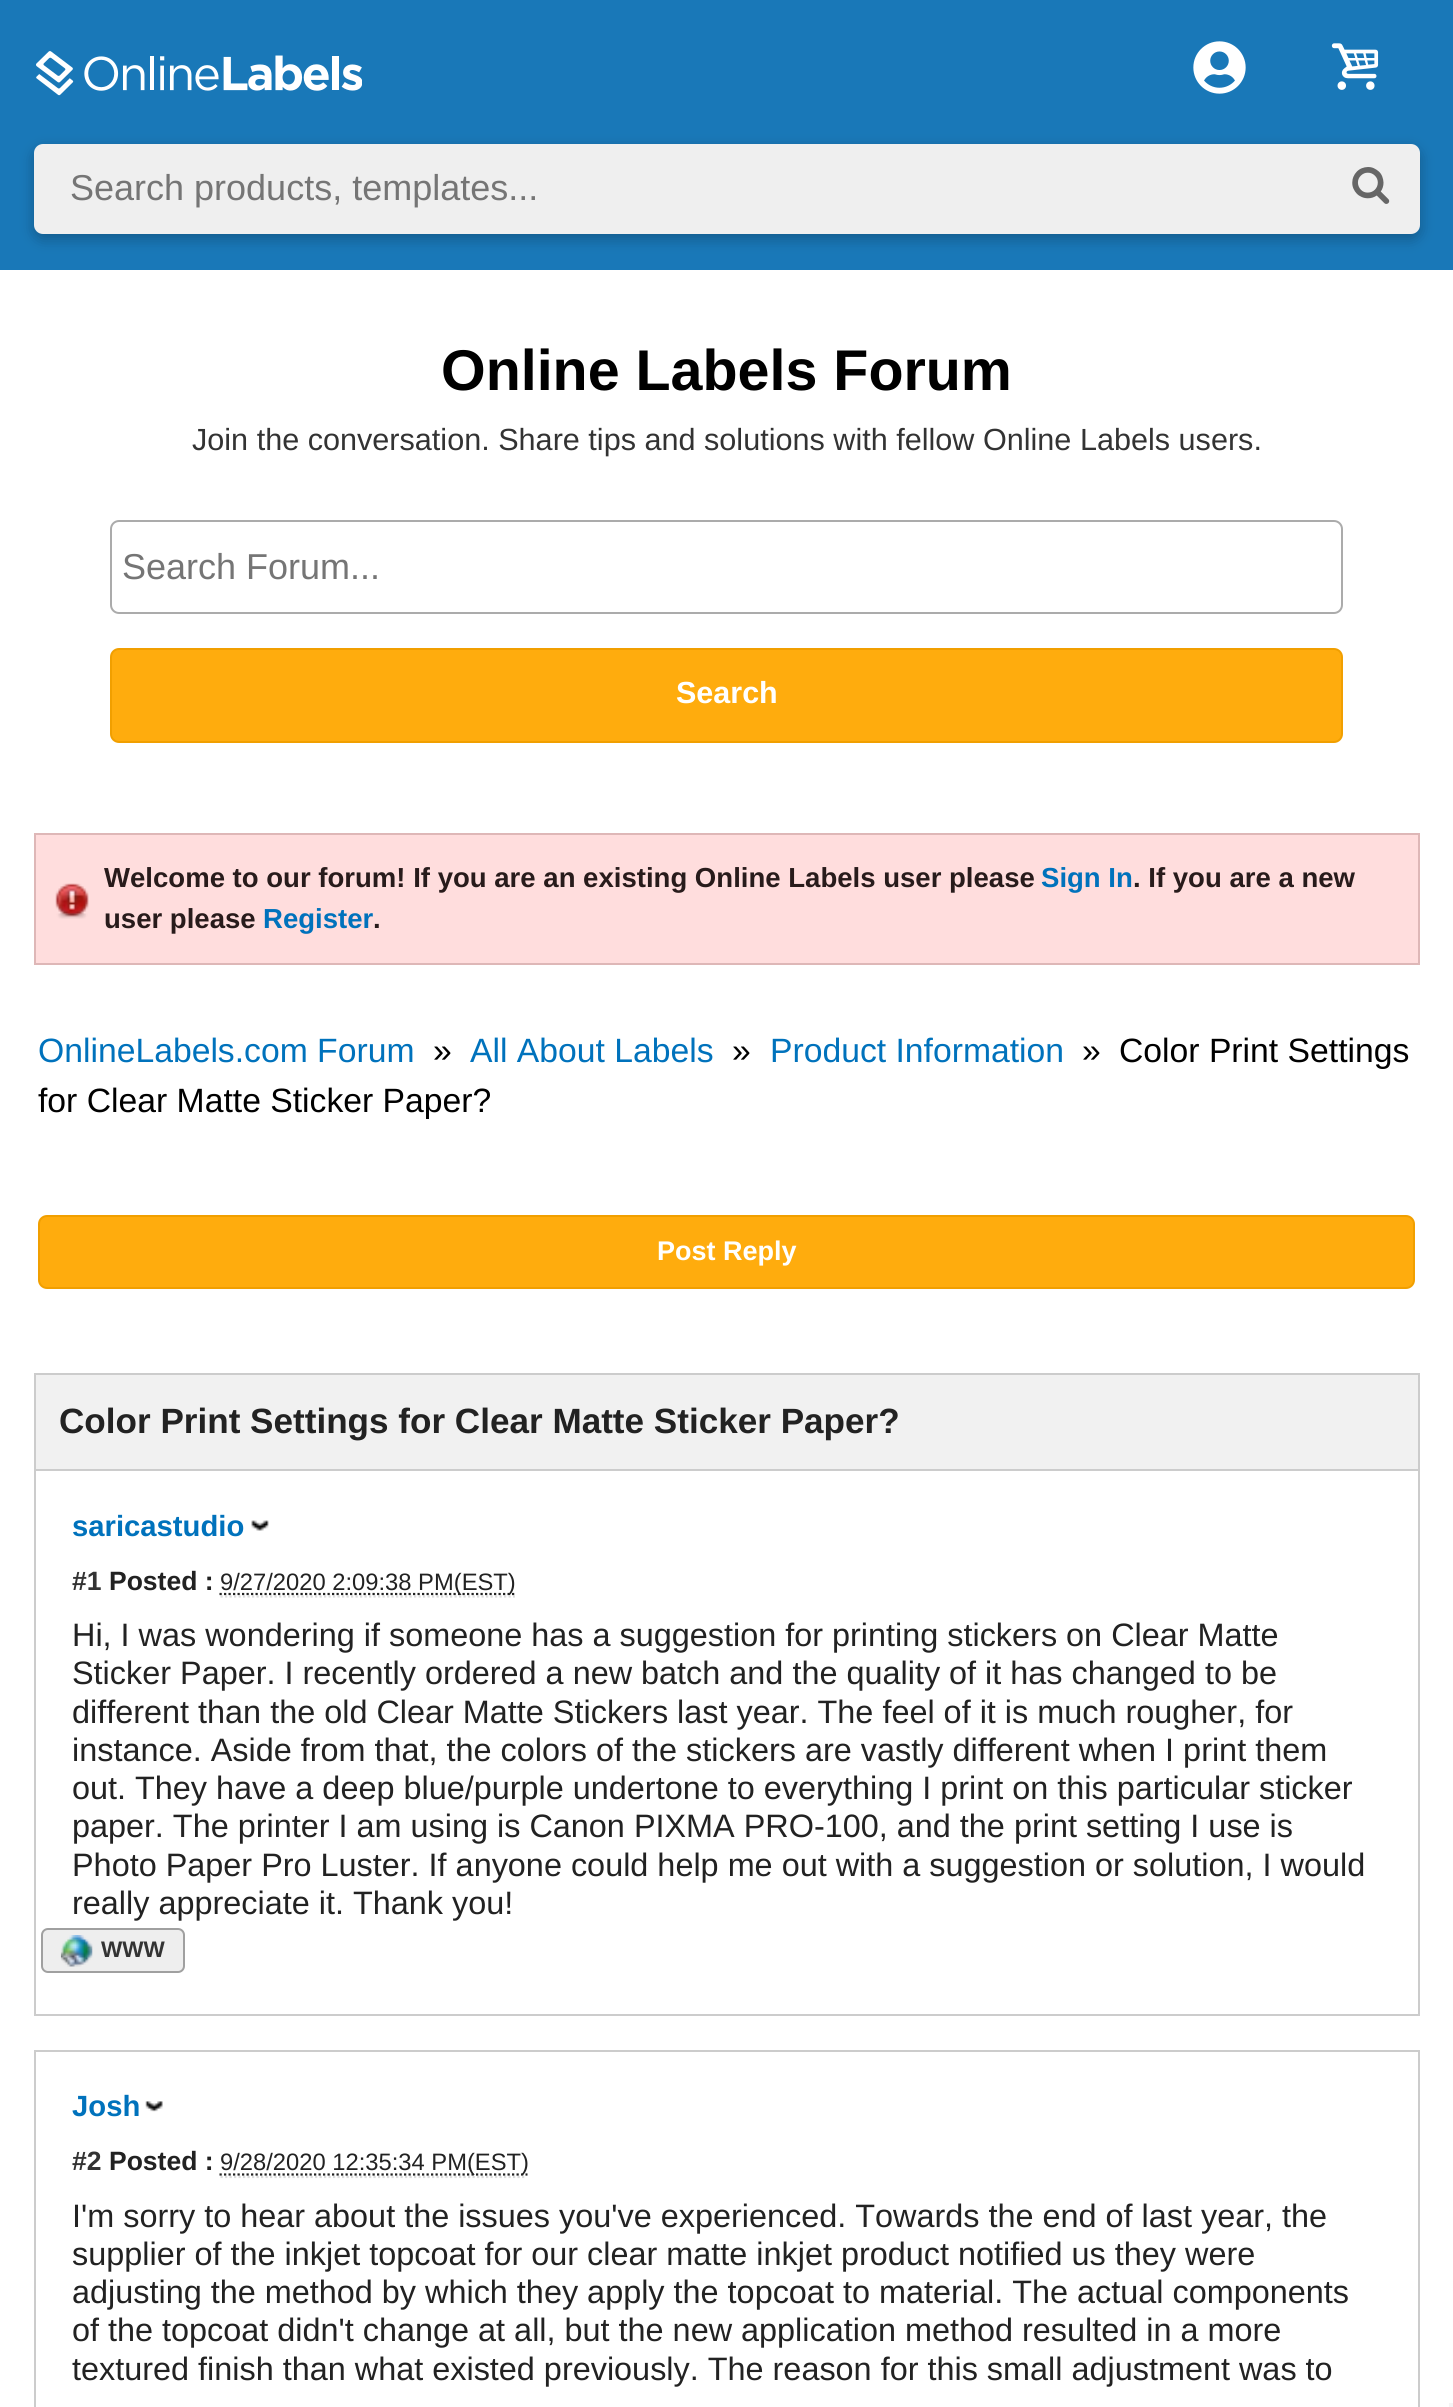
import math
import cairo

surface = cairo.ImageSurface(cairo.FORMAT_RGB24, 1453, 2407)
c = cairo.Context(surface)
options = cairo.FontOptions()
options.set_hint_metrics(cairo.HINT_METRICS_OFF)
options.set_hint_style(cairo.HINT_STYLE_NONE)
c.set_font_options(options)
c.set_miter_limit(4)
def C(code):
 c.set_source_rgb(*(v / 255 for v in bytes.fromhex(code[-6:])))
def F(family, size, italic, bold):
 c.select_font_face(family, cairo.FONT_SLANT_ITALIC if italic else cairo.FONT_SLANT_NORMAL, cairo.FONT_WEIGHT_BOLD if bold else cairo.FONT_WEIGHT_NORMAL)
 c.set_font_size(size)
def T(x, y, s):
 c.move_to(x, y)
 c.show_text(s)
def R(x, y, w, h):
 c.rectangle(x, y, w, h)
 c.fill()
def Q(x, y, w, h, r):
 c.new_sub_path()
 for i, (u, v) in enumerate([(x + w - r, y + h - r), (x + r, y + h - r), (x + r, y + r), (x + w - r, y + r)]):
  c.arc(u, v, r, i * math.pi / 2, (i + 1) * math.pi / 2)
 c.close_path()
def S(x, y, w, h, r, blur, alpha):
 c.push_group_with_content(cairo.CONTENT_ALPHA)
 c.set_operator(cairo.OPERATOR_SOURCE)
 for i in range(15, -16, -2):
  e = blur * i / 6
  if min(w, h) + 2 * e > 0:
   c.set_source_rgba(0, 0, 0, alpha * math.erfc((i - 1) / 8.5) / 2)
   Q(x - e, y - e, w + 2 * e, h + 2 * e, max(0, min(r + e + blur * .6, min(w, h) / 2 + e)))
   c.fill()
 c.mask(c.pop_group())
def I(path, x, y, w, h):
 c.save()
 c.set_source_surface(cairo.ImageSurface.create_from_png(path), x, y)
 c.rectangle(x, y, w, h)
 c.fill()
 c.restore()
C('ffffff')
c.paint()
C('1978b8')
R(0,0,1453,270)
I('1.png',36,51,326,45)
I('2.png',1193,41,53,53)
I('3.png',1331,43,48,47)
C('000000')
S(34,149,1386,90,9,7,.25)
C('efefef')
Q(34,144,1386,90,9)
c.fill()
F('Liberation Sans',36,0,0)
C('757575')
T(70,200,'Search products, templates...')
I('4.png',1352,167,38,37)
F('Liberation Sans',57.4,0,1)
C('000000')
T(441,390,'Online Labels Forum')
F('Liberation Sans',30.6,0,0)
C('333333')
T(192,450,'Join the conversation. Share tips and solutions with fellow Online Labels users.')
Q(111,521,1231,92,8)
C('ababab')
c.stroke()
F('Liberation Sans',36,0,0)
C('757575')
T(122,579,'Search Forum...')
C('ffac0d')
Q(111,649,1231,93,8)
c.fill_preserve()
C('f19f00')
c.stroke()
F('Liberation Sans',30.5,0,1)
C('ffffff')
T(676,703,'Search')
C('ffdddd')
R(36,835,1382,128)
I('5.png',55,883,34,36)
c.rectangle(35,834,1384,130)
C('deb7b7')
c.stroke()
F('Liberation Sans',27.55,0,1)
C('281b1b')
T(104,887,'Welcome to our forum! If you are an existing Online Labels user please')
C('0072bc')
T(1041,887,'Sign In')
C('281b1b')
T(1133,887,'. If you are a new')
T(104,928,'user please')
C('0072bc')
T(263,928,'Register')
C('281b1b')
T(373,928,'.')
F('Liberation Sans',33.7,0,0)
C('0072bc')
T(38,1062,'OnlineLabels.com Forum')
C('000000')
T(433,1062,'»')
C('0072bc')
T(470,1062,'All About Labels')
C('000000')
T(732,1062,'»')
C('0072bc')
T(770,1062,'Product Information')
C('000000')
T(1082,1062,'»')
T(1119,1062,'Color Print Settings')
T(38,1112,'for Clear Matte Sticker Paper?')
C('ffac0d')
Q(39,1216,1375,72,8)
c.fill_preserve()
C('f19f00')
c.stroke()
F('Liberation Sans',27,0,1)
C('ffffff')
T(657,1260,'Post Reply')
C('cccccc')
R(34,1373,1386,2)
R(1418,1373,2,96)
R(34,1373,2,96)
C('f1f1f1')
R(36,1375,1382,94)
F('Liberation Sans',35.1,0,1)
C('222222')
T(59,1433,'Color Print Settings for Clear Matte Sticker Paper?')
C('cccccc')
R(34,1469,1386,2)
R(1418,1469,2,547)
R(34,2014,1386,2)
R(34,1469,2,547)
F('Liberation Sans',29.25,0,1)
C('0072bc')
T(72,1536,'saricastudio')
I('6.png',251,1520,18,11)
F('Liberation Sans',26.5,0,1)
C('333333')
T(72,1590,'#1')
C('222222')
T(109,1590,'Posted :')
c.new_path()
c.move_to(220.5,1596.5)
c.line_to(515,1596.5)
C('dddddd')
c.set_line_width(2.2)
c.set_dash([2.25,2.25])
c.stroke()
c.new_path()
c.move_to(219.5,1594)
c.line_to(514.5,1594)
C('222222')
c.stroke()
F('Liberation Sans',23.75,0,0)
T(220,1590,'9/27/2020 2:09:38 PM(EST)')
F('Liberation Sans',32.4,0,0)
T(72,1646,'Hi, I was wondering if someone has a suggestion for printing stickers on Clear Matte')
T(72,1684,'Sticker Paper. I recently ordered a new batch and the quality of it has changed to be')
T(72,1723,'different than the old Clear Matte Stickers last year. The feel of it is much rougher, for')
T(72,1761,'instance. Aside from that, the colors of the stickers are vastly different when I print them')
T(72,1799,'out. They have a deep blue/purple undertone to everything I print on this particular sticker')
T(72,1837,'paper. The printer I am using is Canon PIXMA PRO-100, and the print setting I use is')
T(72,1876,'Photo Paper Pro Luster. If anyone could help me out with a suggestion or solution, I would')
T(72,1914,'really appreciate it. Thank you!')
C('eeeeee')
Q(42,1929,142,43,6)
c.fill_preserve()
C('a0a0a0')
c.set_line_width(2)
c.set_dash([])
c.stroke()
I('7.png',60,1935,33,32)
F('Liberation Sans',22.5,0,1)
C('333333')
T(101,1957,'WWW')
C('cccccc')
R(34,2050,1386,2)
R(1418,2050,2,357)
R(34,2050,2,357)
F('Liberation Sans',29.25,0,1)
C('0072bc')
T(72,2116,'Josh')
I('8.png',145,2101,18,11)
F('Liberation Sans',26.5,0,1)
C('333333')
T(72,2170,'#2')
C('222222')
T(109,2170,'Posted :')
c.new_path()
c.move_to(220.5,2177)
c.line_to(526.5,2177)
C('dddddd')
c.set_line_width(2.2)
c.set_dash([2.25,2.25])
c.stroke()
c.new_path()
c.move_to(219.5,2174.5)
c.line_to(527.5,2174.5)
C('222222')
c.stroke()
F('Liberation Sans',23.75,0,0)
T(220,2170,'9/28/2020 12:35:34 PM(EST)')
F('Liberation Sans',32.4,0,0)
T(72,2227,'I\'m sorry to hear about the issues you\'ve experienced. Towards the end of last year, the')
T(72,2265,'supplier of the inkjet topcoat for our clear matte inkjet product notified us they were')
T(72,2303,'adjusting the method by which they apply the topcoat to material. The actual components')
T(72,2341,'of the topcoat didn\'t change at all, but the new application method resulted in a more')
T(72,2380,'textured finish than what existed previously. The reason for this small adjustment was to')
C('f5f5f5')
R(1449,2403,4,4)
surface.write_to_png('o.png')
